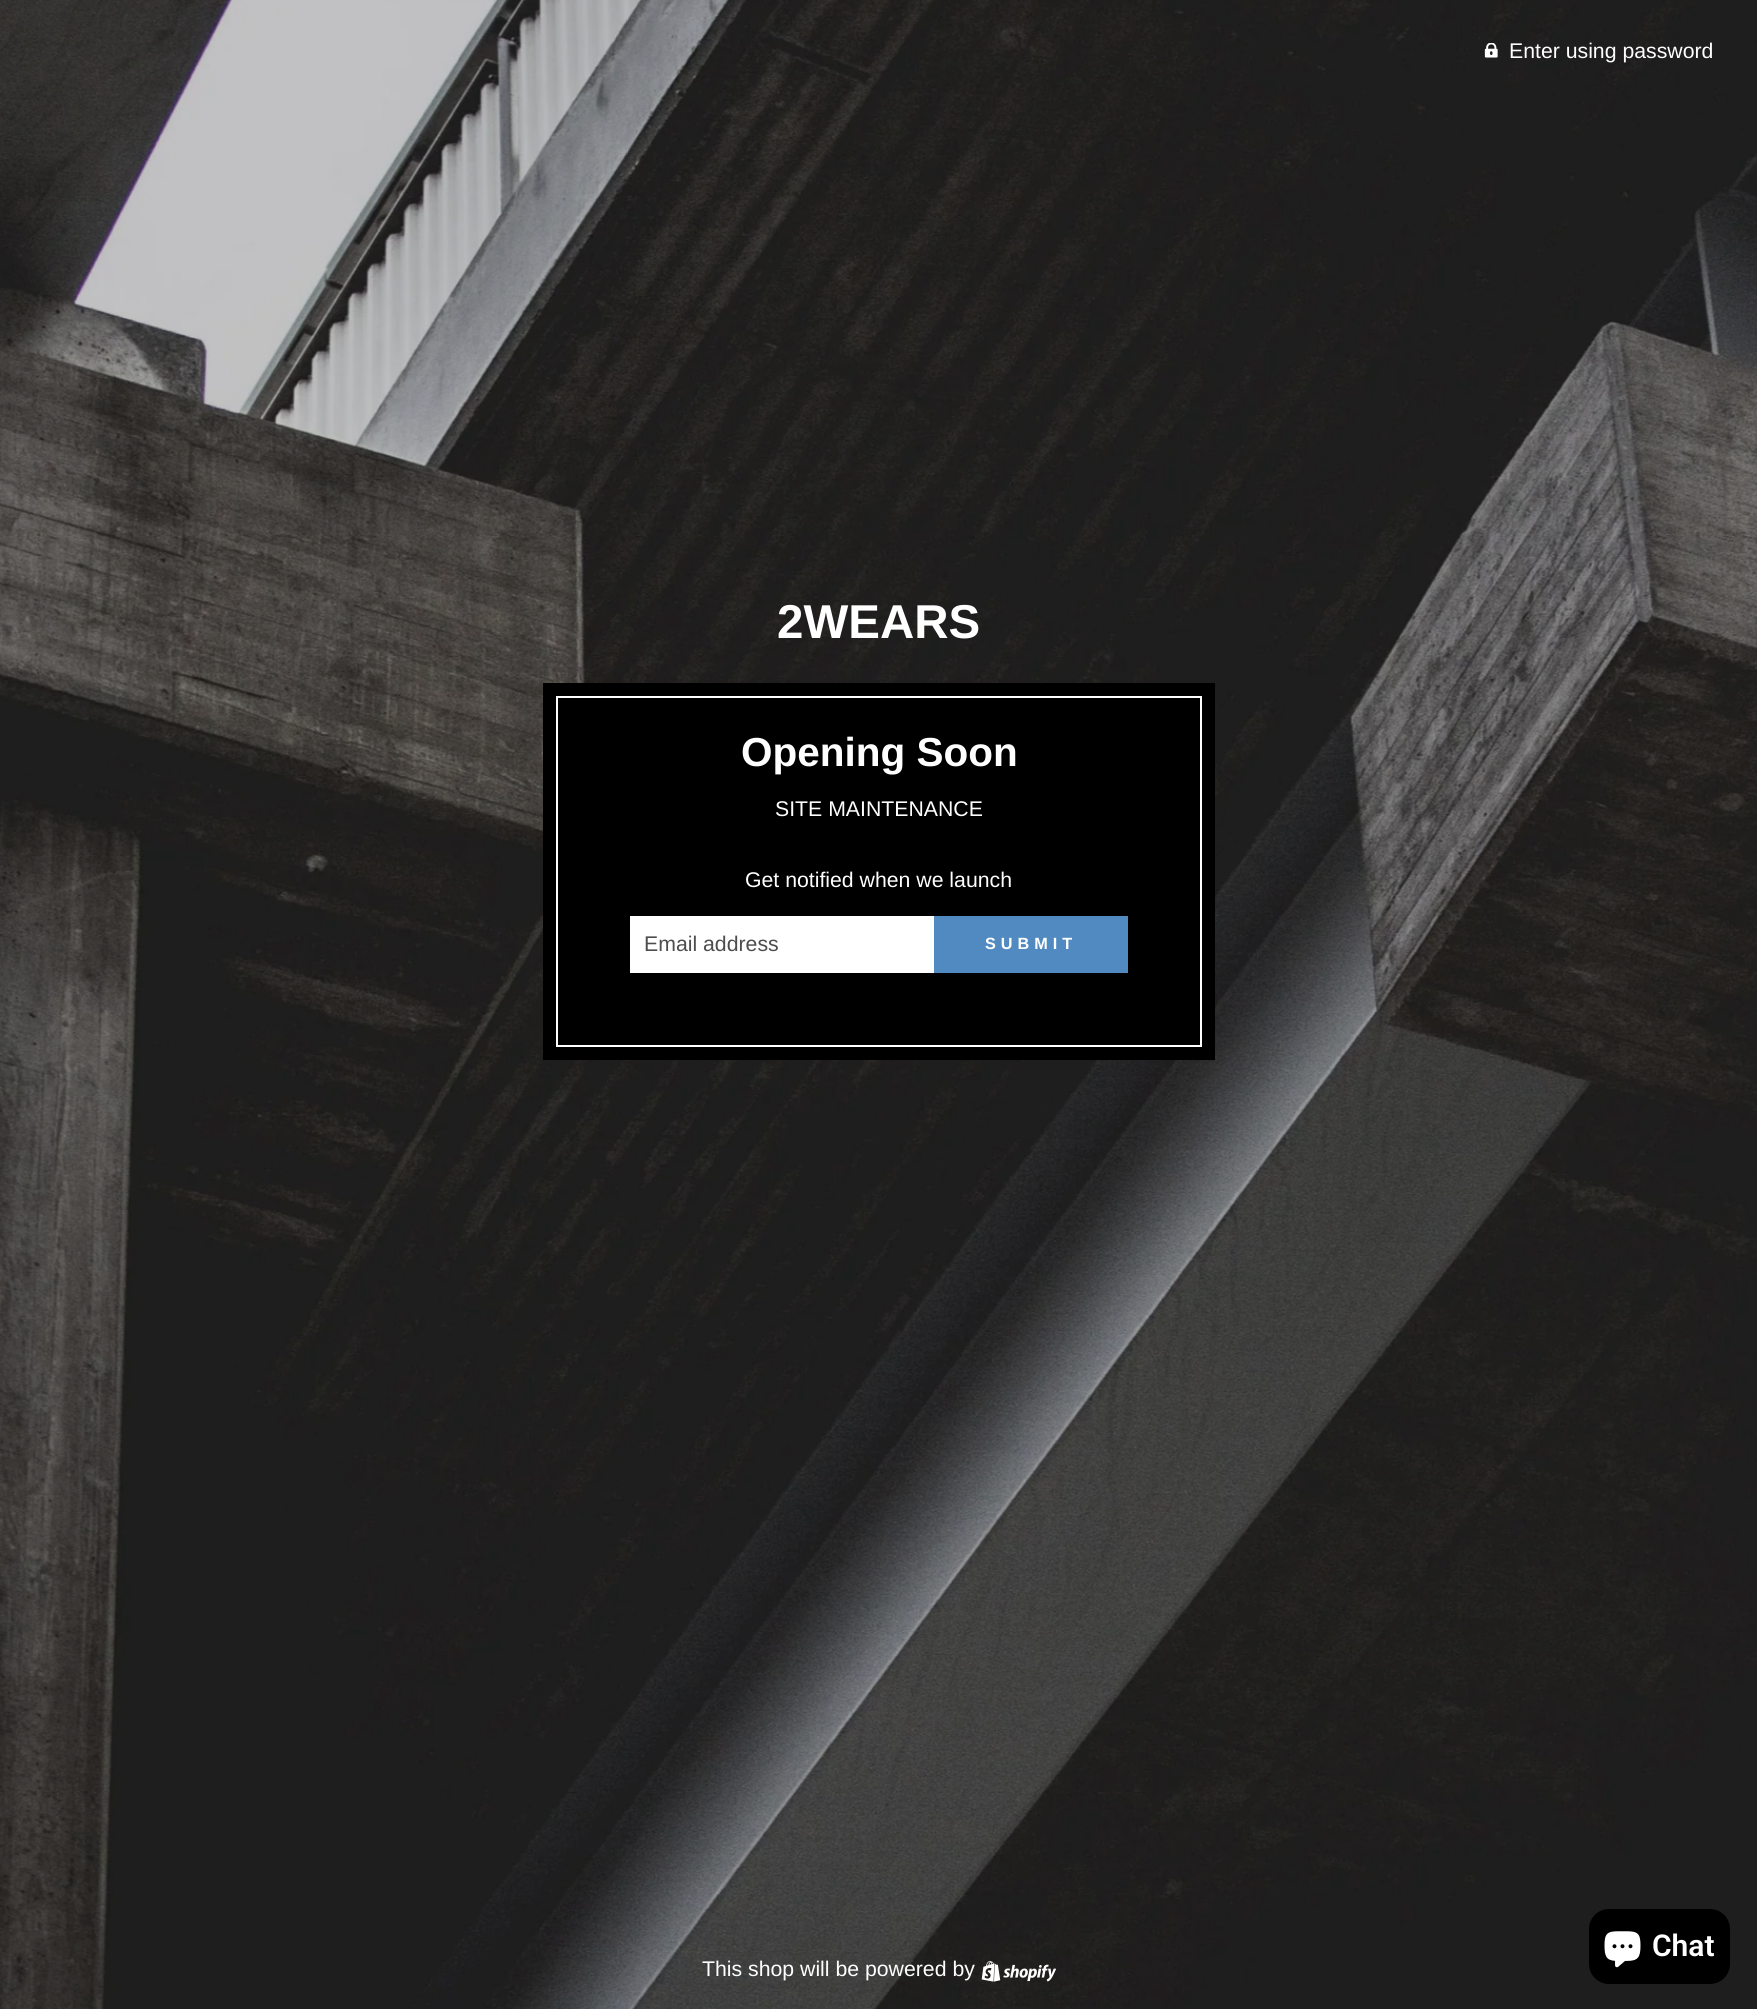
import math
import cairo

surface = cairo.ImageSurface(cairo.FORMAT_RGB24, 1757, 2009)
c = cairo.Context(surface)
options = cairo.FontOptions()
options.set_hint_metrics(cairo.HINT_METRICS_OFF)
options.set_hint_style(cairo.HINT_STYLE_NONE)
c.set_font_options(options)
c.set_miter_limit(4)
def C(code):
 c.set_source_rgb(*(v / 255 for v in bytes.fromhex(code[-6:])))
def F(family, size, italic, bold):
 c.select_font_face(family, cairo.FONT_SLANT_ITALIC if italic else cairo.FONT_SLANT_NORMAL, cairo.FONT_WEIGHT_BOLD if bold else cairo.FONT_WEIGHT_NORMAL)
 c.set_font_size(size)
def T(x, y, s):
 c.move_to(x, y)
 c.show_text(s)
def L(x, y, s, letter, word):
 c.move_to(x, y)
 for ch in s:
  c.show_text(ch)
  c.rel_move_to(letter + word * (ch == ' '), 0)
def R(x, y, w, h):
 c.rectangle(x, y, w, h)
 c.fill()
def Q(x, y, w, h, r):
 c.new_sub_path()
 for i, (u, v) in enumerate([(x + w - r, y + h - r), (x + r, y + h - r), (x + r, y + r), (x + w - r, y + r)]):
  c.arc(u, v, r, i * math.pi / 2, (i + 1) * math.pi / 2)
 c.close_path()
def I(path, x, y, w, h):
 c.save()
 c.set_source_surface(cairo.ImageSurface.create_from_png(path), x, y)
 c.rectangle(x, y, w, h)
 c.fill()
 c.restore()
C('ffffff')
c.paint()
I('1.png',0,0,1757,2009)
I('2.png',1484,43,14,15)
F('Liberation Sans',21.25,0,0)
C('ffffff')
T(1509,58,'Enter using password')
F('Liberation Sans',47.5,0,1)
T(777,638,'2WEARS')
C('000000')
c.rectangle(556.5,696.5,645,350)
c.fill_preserve()
C('ffffff')
c.set_line_width(3)
c.stroke()
c.rectangle(549.5,689.5,659,364)
C('000000')
c.set_line_width(13)
c.stroke()
F('Liberation Sans',40.5,0,1)
C('ffffff')
T(741,766,'Opening Soon')
F('Liberation Sans',21.25,0,0)
T(775,816,'SITE MAINTENANCE')
T(745,887,'Get notified when we launch')
R(630,916,304,57)
C('4d4d4d')
T(644,951,'Email address')
C('518ac1')
R(934,916,194,57)
F('Liberation Sans',16.25,0,1)
C('ffffff')
L(985,949,'SUBMIT',5,0)
F('Liberation Sans',21.25,0,0)
T(702,1976,'This shop will be powered by')
I('3.png',981,1961,75,21)
C('000000')
Q(1589,1909,141,75,20)
c.fill()
I('4.png',1604,1931,37,37)
F('Roboto SemiBold',30,0,0)
C('ffffff')
T(1652,1956,'Chat')
surface.write_to_png('o.png')
